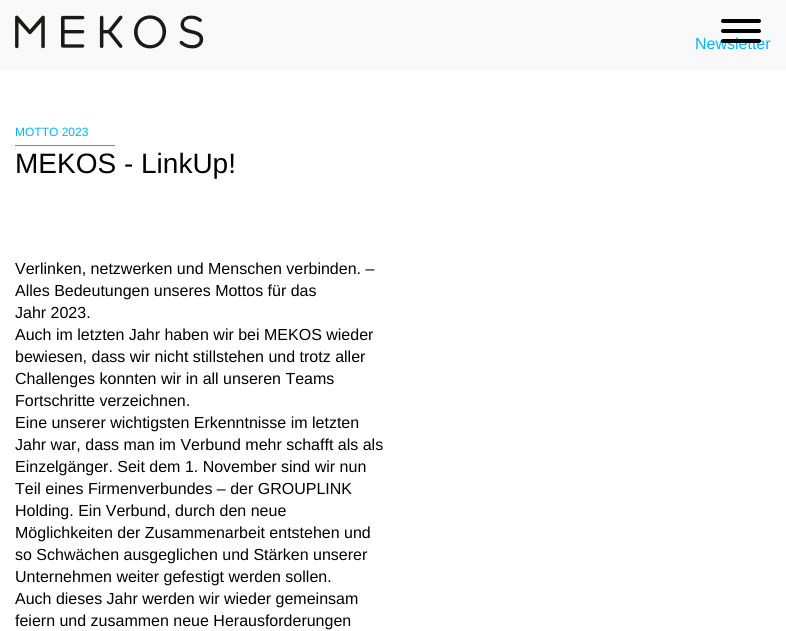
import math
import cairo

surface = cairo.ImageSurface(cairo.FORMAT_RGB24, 786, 631)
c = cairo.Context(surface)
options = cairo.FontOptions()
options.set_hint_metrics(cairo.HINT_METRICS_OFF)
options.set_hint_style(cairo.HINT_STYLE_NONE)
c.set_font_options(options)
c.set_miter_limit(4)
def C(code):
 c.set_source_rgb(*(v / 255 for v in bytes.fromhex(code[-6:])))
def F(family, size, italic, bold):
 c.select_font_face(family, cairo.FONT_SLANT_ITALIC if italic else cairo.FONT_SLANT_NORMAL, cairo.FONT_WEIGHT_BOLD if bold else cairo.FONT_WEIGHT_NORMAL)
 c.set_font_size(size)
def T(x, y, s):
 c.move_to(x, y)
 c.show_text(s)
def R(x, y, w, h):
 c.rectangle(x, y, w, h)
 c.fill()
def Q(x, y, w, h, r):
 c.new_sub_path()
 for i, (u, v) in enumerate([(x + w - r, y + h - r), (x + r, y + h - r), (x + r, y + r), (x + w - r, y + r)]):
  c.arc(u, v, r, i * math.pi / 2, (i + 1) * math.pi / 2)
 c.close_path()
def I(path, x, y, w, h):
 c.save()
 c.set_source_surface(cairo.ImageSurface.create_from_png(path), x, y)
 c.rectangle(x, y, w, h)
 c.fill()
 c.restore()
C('ffffff')
c.paint()
C('f9f9f9')
R(0,0,786,70)
C('000000')
Q(721,29,40,4,2)
c.fill()
Q(721,19,40,4,2)
c.fill()
F('Liberation Sans',16,0,0)
C('00b5ff')
T(695,49,'Newsletter')
C('000000')
Q(721,39,40,4,2)
c.fill()
I('1.png',15,15,189,34)
F('Liberation Sans',12,0,0)
C('00b5ff')
T(15,136,'MOTTO 2023')
R(15,145,100,1)
F('Liberation Sans',28,0,0)
C('000000')
T(15,173,'MEKOS - LinkUp!')
F('Liberation Sans',16,0,0)
T(15,274,'Verlinken, netzwerken und Menschen verbinden. –')
T(15,296,'Alles Bedeutungen unseres Mottos für das')
T(15,318,'Jahr 2023.')
T(15,340,'Auch im letzten Jahr haben wir bei MEKOS wieder')
T(15,362,'bewiesen, dass wir nicht stillstehen und trotz aller')
T(15,384,'Challenges konnten wir in all unseren Teams')
T(15,406,'Fortschritte verzeichnen.')
T(15,428,'Eine unserer wichtigsten Erkenntnisse im letzten')
T(15,450,'Jahr war, dass man im Verbund mehr schafft als als')
T(15,472,'Einzelgänger. Seit dem 1. November sind wir nun')
T(15,494,'Teil eines Firmenverbundes – der GROUPLINK')
T(15,516,'Holding. Ein Verbund, durch den neue')
T(15,538,'Möglichkeiten der Zusammenarbeit entstehen und')
T(15,560,'so Schwächen ausgeglichen und Stärken unserer')
T(15,582,'Unternehmen weiter gefestigt werden sollen.')
T(15,604,'Auch dieses Jahr werden wir wieder gemeinsam')
T(15,626,'feiern und zusammen neue Herausforderungen')
surface.write_to_png('o.png')
